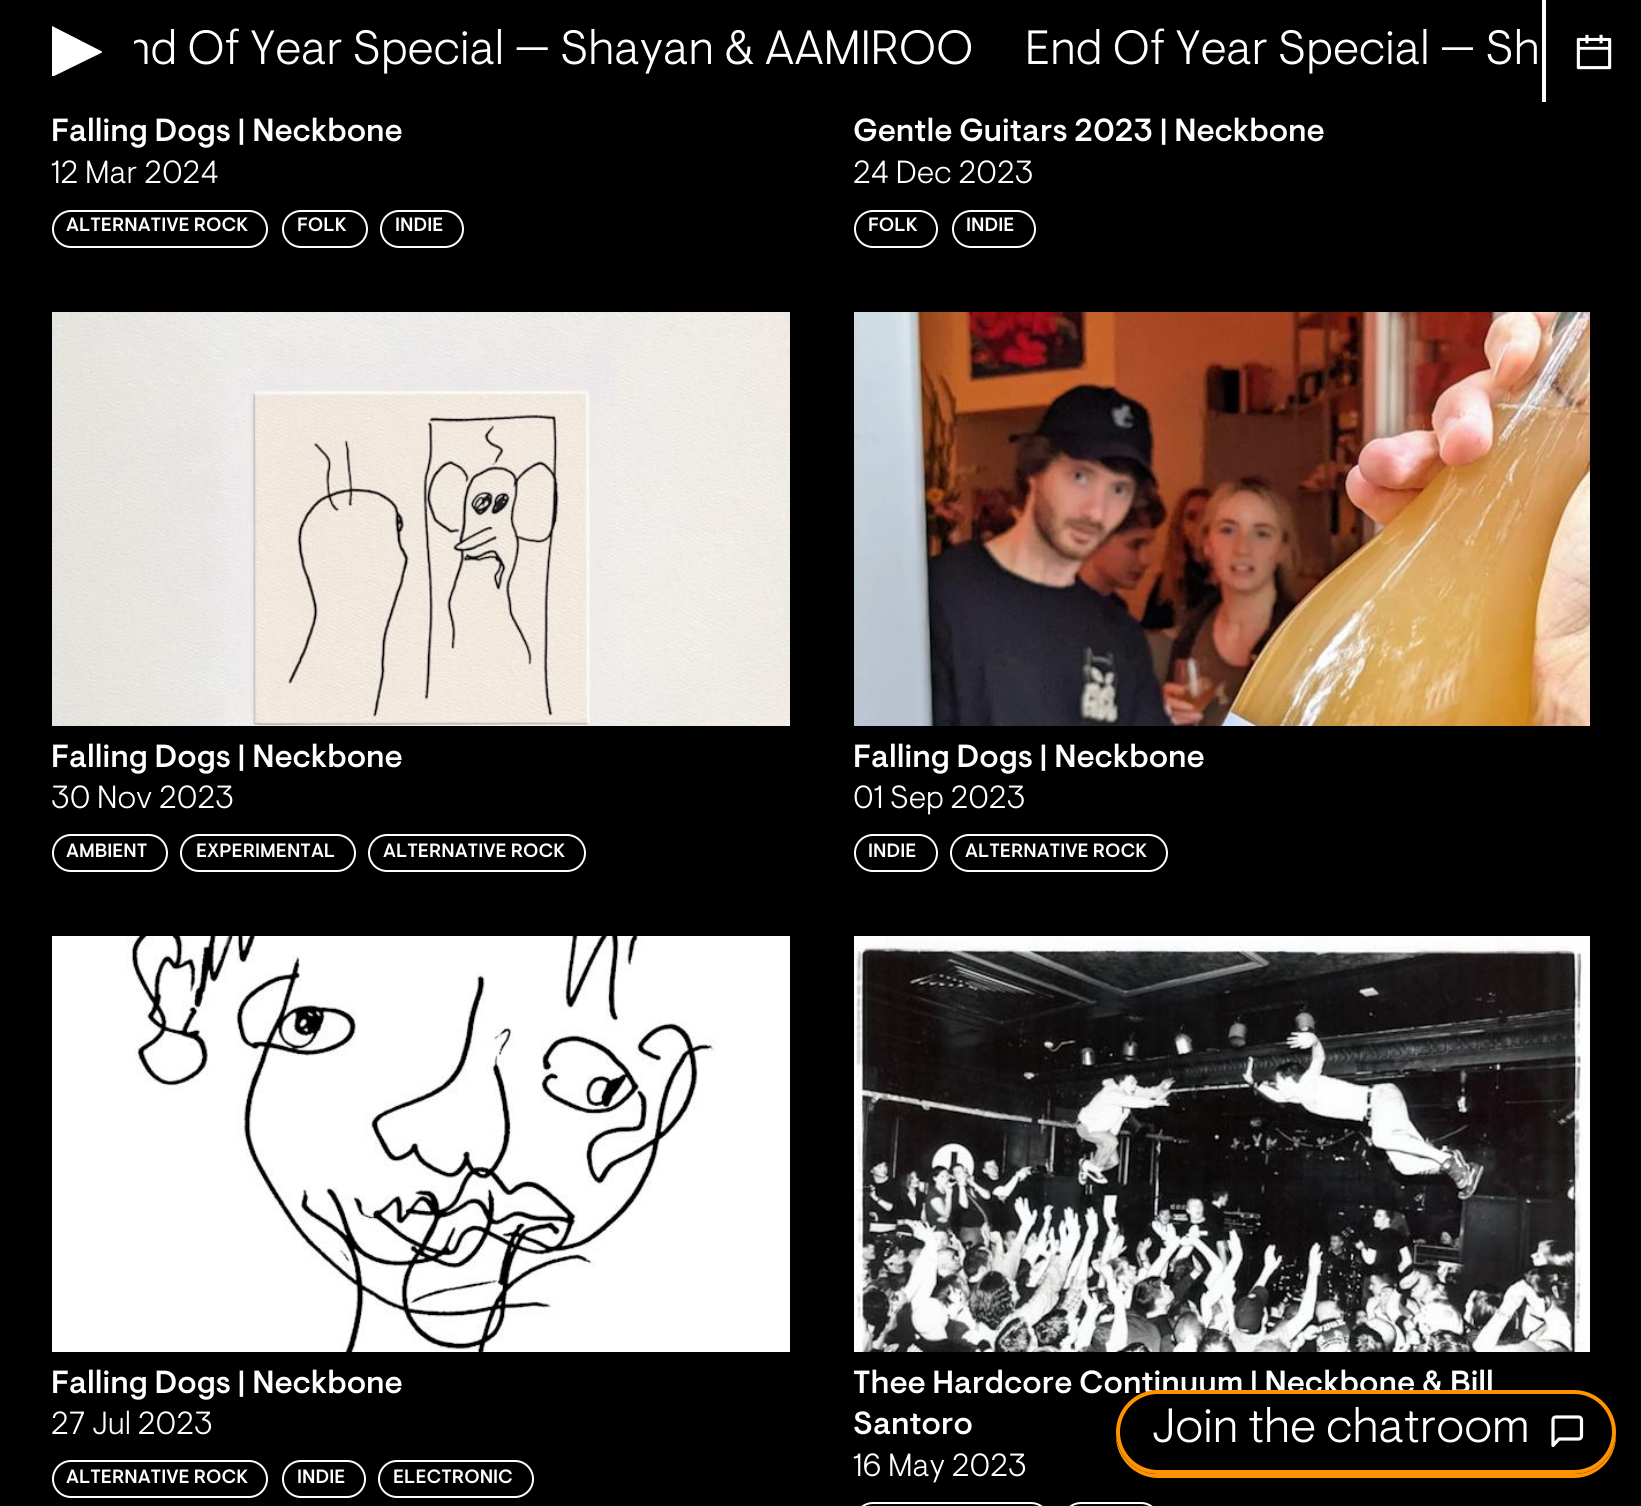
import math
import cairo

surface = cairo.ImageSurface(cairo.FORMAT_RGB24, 1641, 1506)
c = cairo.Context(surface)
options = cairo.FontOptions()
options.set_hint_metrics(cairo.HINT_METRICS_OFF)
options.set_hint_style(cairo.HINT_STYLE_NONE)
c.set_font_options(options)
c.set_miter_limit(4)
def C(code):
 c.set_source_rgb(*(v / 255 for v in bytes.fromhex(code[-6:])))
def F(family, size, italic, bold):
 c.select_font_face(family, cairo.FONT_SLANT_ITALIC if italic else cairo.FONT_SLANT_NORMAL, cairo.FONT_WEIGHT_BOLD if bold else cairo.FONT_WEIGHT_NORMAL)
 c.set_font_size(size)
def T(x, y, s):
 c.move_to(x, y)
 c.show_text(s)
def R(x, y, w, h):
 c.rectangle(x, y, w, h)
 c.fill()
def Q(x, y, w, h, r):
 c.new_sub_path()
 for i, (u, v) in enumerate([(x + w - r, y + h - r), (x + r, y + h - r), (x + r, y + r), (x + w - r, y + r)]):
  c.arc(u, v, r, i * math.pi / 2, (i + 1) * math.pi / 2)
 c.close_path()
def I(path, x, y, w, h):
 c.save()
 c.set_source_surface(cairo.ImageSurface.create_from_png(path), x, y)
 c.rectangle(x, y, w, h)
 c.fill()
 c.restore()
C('000000')
c.paint()
c.save()
c.rectangle(52,26,50,50)
c.clip()
C('ffffff')
c.new_path()
c.move_to(103,52)
c.line_to(52,77)
c.line_to(52,26)
c.close_path()
c.fill()
c.restore()
c.save()
c.rectangle(134,22,1408,62)
c.clip()
F('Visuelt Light',48,0,0)
C('ffffff')
T(125,64,'nd Of Year Special — Shayan & AAMIROO')
c.restore()
F('Visuelt Light',48,0,0)
C('ffffff')
T(1025,64,'End Of Year Special — Sh')
R(1542,0,4,102)
I('1.png',1576,34,36,36)
F('Visuelt Medium',32,0,0)
T(51,141,'Falling Dogs | Neckbone')
F('Visuelt Light',32,0,0)
T(51,183,'12 Mar 2024')
Q(53,211,214,36,18)
c.stroke()
F('Visuelt Medium',19.25,0,0)
T(66,231,'ALTERNATIVE ROCK')
Q(283,211,84,36,18)
c.stroke()
T(297,231,'FOLK')
Q(381,211,82,36,18)
c.stroke()
T(395,231,'INDIE')
F('Visuelt Medium',32,0,0)
T(853,141,'Gentle Guitars 2023 | Neckbone')
F('Visuelt Light',32,0,0)
T(853,183,'24 Dec 2023')
Q(855,211,82,36,18)
c.stroke()
F('Visuelt Medium',19.25,0,0)
T(868,231,'FOLK')
Q(953,211,82,36,18)
c.stroke()
T(966,231,'INDIE')
I('2.png',52,312,738,414)
F('Visuelt Medium',32,0,0)
T(51,767,'Falling Dogs | Neckbone')
F('Visuelt Light',32,0,0)
T(51,808,'30 Nov 2023')
Q(53,835,114,36,18)
c.stroke()
F('Visuelt Medium',19.25,0,0)
T(66,857,'AMBIENT')
Q(181,835,174,36,18)
c.stroke()
T(196,857,'EXPERIMENTAL')
Q(369,835,216,36,18)
c.stroke()
T(383,857,'ALTERNATIVE ROCK')
I('3.png',854,312,736,414)
F('Visuelt Medium',32,0,0)
T(853,767,'Falling Dogs | Neckbone')
F('Visuelt Light',32,0,0)
T(853,808,'01 Sep 2023')
Q(855,835,82,36,18)
c.stroke()
F('Visuelt Medium',19.25,0,0)
T(868,857,'INDIE')
Q(951,835,216,36,18)
c.stroke()
T(965,857,'ALTERNATIVE ROCK')
I('4.png',52,936,738,416)
F('Visuelt Medium',32,0,0)
T(51,1393,'Falling Dogs | Neckbone')
F('Visuelt Light',32,0,0)
T(51,1434,'27 Jul 2023')
Q(53,1461,214,36,18)
c.stroke()
F('Visuelt Medium',19.25,0,0)
T(66,1483,'ALTERNATIVE ROCK')
Q(283,1461,82,36,18)
c.stroke()
T(297,1483,'INDIE')
Q(379,1461,154,36,18)
c.stroke()
T(393,1483,'ELECTRONIC')
I('5.png',854,936,736,416)
F('Visuelt Medium',32,0,0)
T(853,1393,'Thee Hardcore Continuum | Neckbone & Bill')
T(853,1434,'Santoro')
F('Visuelt Light',32,0,0)
T(853,1476,'16 May 2023')
Q(855,1503,194,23,18)
c.stroke()
Q(1063,1503,96,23,18)
c.stroke()
C('ff9300')
c.new_path()
c.move_to(1116,1434)
c.line_to(1116,1436)
c.curve_to(1116,1459,1135,1478,1158,1478)
c.line_to(1574,1478)
c.curve_to(1597,1478,1616,1459,1616,1436)
c.line_to(1616,1434)
c.curve_to(1615,1456,1597,1474,1574,1474)
c.line_to(1158,1474)
c.curve_to(1135,1474,1117,1456,1116,1434)
c.close_path()
c.fill()
C('000000')
Q(1118,1392,496,80,40)
c.fill_preserve()
C('ff9300')
c.set_line_width(4)
c.stroke()
F('Visuelt Light',48,0,0)
C('ffffff')
T(1152,1442,'Join the chatroom')
c.new_path()
c.move_to(1581.5,1436)
c.curve_to(1581.5,1438,1580,1439,1578.5,1439)
c.line_to(1559,1439)
c.line_to(1553,1445.5)
c.line_to(1553,1420)
c.curve_to(1553,1418,1554,1417,1556,1417)
c.line_to(1578.5,1417)
c.curve_to(1580,1417,1581.5,1418,1581.5,1420)
c.close_path()
c.set_line_width(3.2)
c.set_line_cap(cairo.LINE_CAP_ROUND)
c.set_line_join(cairo.LINE_JOIN_ROUND)
c.stroke()
surface.write_to_png('o.png')
